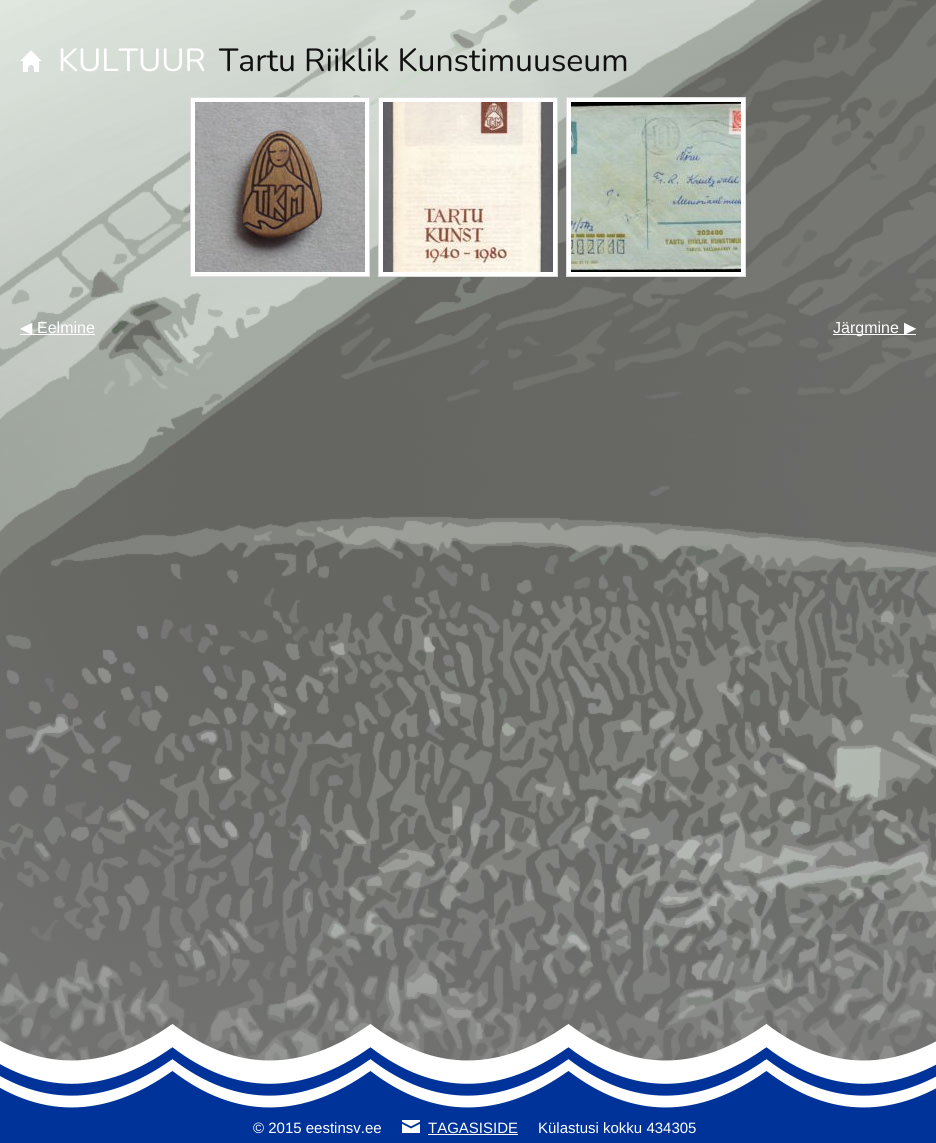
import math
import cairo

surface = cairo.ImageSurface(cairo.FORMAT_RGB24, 936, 1143)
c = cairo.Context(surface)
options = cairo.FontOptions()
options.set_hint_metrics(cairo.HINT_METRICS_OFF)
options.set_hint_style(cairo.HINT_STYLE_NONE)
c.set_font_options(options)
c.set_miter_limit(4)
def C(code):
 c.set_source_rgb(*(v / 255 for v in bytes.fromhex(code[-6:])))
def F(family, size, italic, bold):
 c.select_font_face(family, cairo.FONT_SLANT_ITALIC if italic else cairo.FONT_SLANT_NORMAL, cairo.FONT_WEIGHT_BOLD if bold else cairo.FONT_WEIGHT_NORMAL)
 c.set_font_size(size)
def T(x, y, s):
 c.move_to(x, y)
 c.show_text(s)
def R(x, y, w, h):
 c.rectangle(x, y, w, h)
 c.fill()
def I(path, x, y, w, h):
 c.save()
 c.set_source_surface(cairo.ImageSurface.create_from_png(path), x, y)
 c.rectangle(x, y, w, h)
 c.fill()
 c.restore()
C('ffffff')
c.paint()
I('1.png',0,0,936,1061)
I('2.png',20,50,22,22)
F('Nunito ExtraLight',32,0,0)
C('ffffff')
T(58,71,'KULTUUR')
C('111111')
T(219,71,'Tartu Riiklik Kunstimuuseum')
c.rectangle(190.5,97.5,179,179)
C('dddddd')
c.set_line_width(1)
c.stroke()
C('ffffff')
R(191,98,178,178)
I('3.png',195,102,170,170)
c.rectangle(378.5,97.5,179,179)
C('dddddd')
c.stroke()
C('ffffff')
R(379,98,178,178)
I('4.png',383,102,170,170)
c.rectangle(566.5,97.5,179,179)
C('dddddd')
c.stroke()
C('ffffff')
R(567,98,178,178)
I('5.png',571,102,170,170)
R(20,334,75,1)
F('DejaVu Sans',16,0,0)
T(20,333,'◀')
F('Liberation Sans',16,0,0)
T(37,333,'Eelmine')
R(833,334,83,1)
T(833,333,'Järgmine')
F('DejaVu Sans',16,0,0)
T(904,333,'▶')
I('6.png',0,1024,936,119)
F('Liberation Sans',15,0,0)
T(253,1133,'© 2015 eestinsv.ee')
I('7.png',402,1120,18,13)
T(428,1133,'TAGASISIDE')
R(428,1134,90,1)
T(538,1133,'Külastusi kokku 434305')
surface.write_to_png('o.png')
